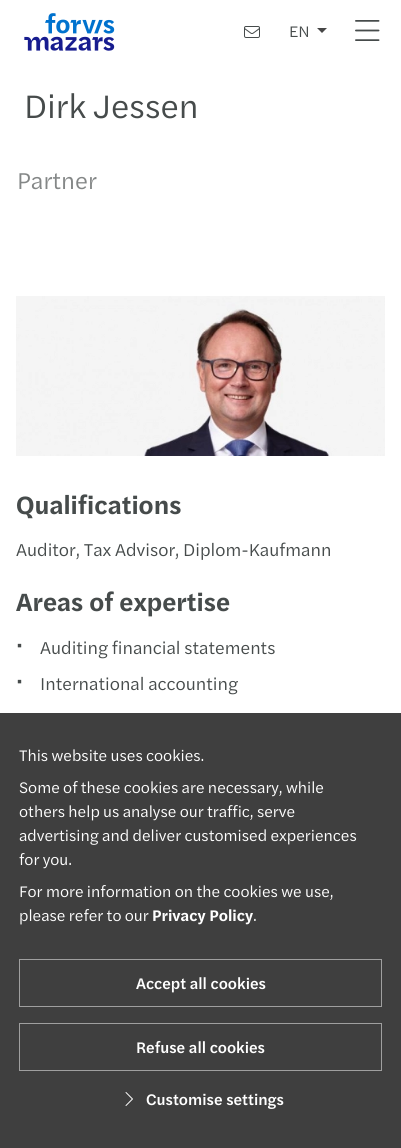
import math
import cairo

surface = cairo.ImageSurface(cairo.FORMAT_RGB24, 401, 1148)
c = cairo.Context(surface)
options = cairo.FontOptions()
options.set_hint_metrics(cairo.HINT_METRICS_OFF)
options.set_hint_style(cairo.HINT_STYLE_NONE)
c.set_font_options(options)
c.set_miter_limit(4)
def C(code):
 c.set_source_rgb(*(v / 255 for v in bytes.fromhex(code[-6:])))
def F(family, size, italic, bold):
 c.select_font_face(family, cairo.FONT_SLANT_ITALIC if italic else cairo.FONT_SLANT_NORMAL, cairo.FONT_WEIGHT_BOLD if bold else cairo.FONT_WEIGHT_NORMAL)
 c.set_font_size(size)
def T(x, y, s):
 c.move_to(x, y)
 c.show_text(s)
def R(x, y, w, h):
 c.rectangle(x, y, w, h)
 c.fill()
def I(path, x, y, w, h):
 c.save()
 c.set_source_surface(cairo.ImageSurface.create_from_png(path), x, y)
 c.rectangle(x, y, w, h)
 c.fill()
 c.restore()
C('ffffff')
c.paint()
I('1.png',24,13,91,38)
I('2.png',244,26,16,12)
F('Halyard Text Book',16,0,0)
C('464b4b')
T(289,37,'EN')
C('464646')
c.new_path()
c.move_to(322,33)
c.line_to(327,28)
c.line_to(317,28)
c.close_path()
c.fill()
I('3.png',355,20,25,21)
F('Halyard Text Book',34,0,0)
C('464b4b')
T(24,118,'Dirk Jessen')
F('Halyard Text Book',24,0,0)
C('848787')
T(17,189,'Partner')
I('4.png',16,296,369,160)
F('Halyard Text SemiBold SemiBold',26,0,0)
C('464b4b')
T(16,514,'Qualifications')
F('Halyard Text Book',18,0,0)
T(16,556,'Auditor, Tax Advisor, Diplom-Kaufmann')
F('Halyard Text SemiBold SemiBold',26,0,0)
T(16,611,'Areas of expertise')
F('Halyard Text Book',20,0,0)
T(16,651,'•')
F('Halyard Text Book',18,0,0)
T(40,654,'Auditing financial statements')
F('Halyard Text Book',20,0,0)
T(16,687,'•')
F('Halyard Text Book',18,0,0)
T(40,690,'International accounting')
C('3f3f3f')
R(0,713,401,435)
F('Halyard Text Book',16,0,0)
C('ffffff')
T(19,761,'This website uses cookies.')
T(19,793,'Some of these cookies are necessary, while')
T(19,817,'others help us analyse our traffic, serve')
T(19,841,'advertising and deliver customised experiences')
T(19,865,'for you.')
T(19,897,'For more information on the cookies we use,')
T(19,921,'please refer to our')
F('Halyard Text SemiBold SemiBold',16,0,0)
T(152,921,'Privacy Policy')
F('Halyard Text Book',16,0,0)
T(253,921,'.')
c.rectangle(19.5,959.5,362,47)
C('9f9f9f')
c.set_line_width(1)
c.stroke()
F('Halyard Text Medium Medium',16,0,0)
C('ffffff')
T(136,989,'Accept all cookies')
c.rectangle(19.5,1023.5,362,47)
C('9f9f9f')
c.stroke()
C('ffffff')
T(136,1053,'Refuse all cookies')
I('5.png',125,1092,8,14)
T(146,1105,'Customise settings')
surface.write_to_png('o.png')
